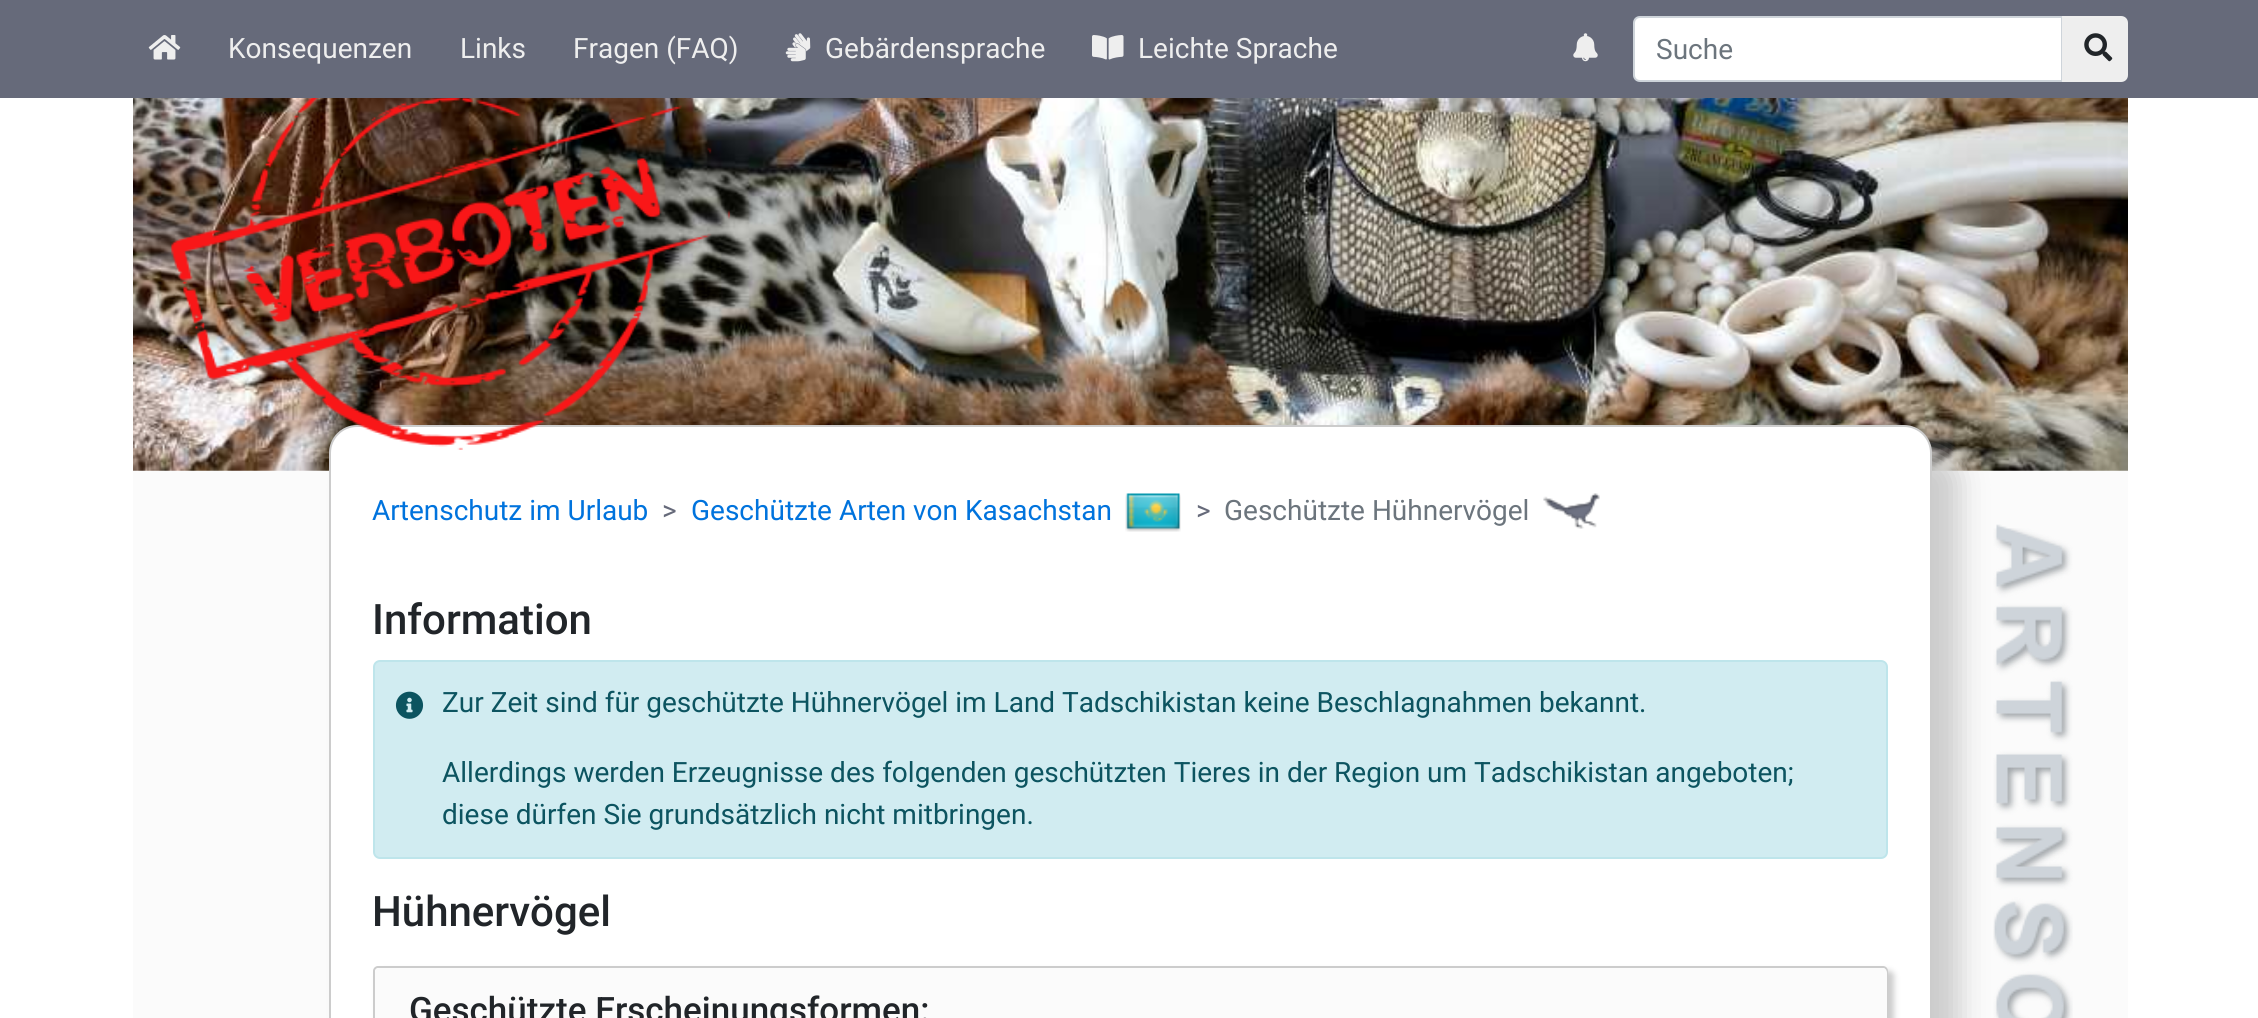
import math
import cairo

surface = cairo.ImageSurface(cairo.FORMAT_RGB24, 2258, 1018)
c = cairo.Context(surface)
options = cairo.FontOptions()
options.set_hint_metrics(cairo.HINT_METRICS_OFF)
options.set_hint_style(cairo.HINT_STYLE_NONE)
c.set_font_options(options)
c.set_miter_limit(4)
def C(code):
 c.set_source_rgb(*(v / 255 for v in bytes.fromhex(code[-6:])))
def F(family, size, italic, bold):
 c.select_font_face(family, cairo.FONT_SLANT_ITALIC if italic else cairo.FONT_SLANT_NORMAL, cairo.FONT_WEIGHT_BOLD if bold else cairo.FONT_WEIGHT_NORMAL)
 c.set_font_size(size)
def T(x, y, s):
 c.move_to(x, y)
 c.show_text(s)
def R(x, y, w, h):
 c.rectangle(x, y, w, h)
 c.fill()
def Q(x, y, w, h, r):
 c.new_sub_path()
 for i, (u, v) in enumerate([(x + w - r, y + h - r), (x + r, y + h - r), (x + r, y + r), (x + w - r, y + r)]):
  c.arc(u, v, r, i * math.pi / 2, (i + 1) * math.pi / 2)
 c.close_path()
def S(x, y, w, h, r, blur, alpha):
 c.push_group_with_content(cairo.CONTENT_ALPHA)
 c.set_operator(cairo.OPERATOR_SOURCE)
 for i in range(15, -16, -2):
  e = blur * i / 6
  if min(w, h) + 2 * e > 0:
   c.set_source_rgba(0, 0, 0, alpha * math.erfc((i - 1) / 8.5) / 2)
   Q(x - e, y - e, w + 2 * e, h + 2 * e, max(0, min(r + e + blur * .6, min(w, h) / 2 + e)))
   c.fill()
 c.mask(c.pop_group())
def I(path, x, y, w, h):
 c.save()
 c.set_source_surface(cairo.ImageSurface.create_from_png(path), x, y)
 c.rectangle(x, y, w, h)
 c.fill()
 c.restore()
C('ffffff')
c.paint()
C('666a7a')
R(0,0,2258,98)
I('1.png',148,35,33,25)
F('Roboto',28,0,0)
C('eeeeee')
T(228,58,'Konsequenzen')
T(460,58,'Links')
T(573,58,'Fragen (FAQ)')
I('2.png',785,33,26,29)
T(825,58,'Gebärdensprache')
I('3.png',1092,35,32,25)
T(1138,58,'Leichte Sprache')
I('4.png',1573,33,25,29)
C('ffffff')
c.new_path()
c.move_to(1640,17)
c.line_to(2062,17)
c.line_to(2062,81)
c.line_to(1640,81)
c.curve_to(1636.5,81,1634,78.5,1634,75)
c.line_to(1634,23)
c.curve_to(1634,19.5,1636.5,17,1640,17)
c.close_path()
c.fill_preserve()
C('ced4da')
c.stroke()
C('6c757d')
T(1656,59,'Suche')
C('eeeeee')
c.new_path()
c.move_to(2063,17)
c.line_to(2121,17)
c.curve_to(2124.5,17,2127,19.5,2127,23)
c.line_to(2127,75)
c.curve_to(2127,78.5,2124.5,81,2121,81)
c.line_to(2063,81)
c.close_path()
c.fill_preserve()
c.stroke()
I('5.png',2084,33,29,29)
I('6.png',133,98,1995,373)
C('fbfbfb')
R(133,471,1995,547)
I('11.png',1993,524,80,494)
C('cccccc')
S(357,453,1603,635,28,14,1)
C('ffffff')
Q(330,426,1601,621,27)
c.fill_preserve()
C('cccccc')
c.stroke()
I('7.png',171,98,559,352)
C('0073dd')
T(372,520,'Artenschutz im Urlaub')
C('666a7a')
T(662,520,'>')
C('0073dd')
T(691,520,'Geschützte Arten von Kasachstan')
I('8.png',1125,493,56,39)
C('666a7a')
T(1196,520,'>')
C('6c757d')
T(1224,520,'Geschützte Hühnervögel')
I('9.png',1543,493,57,36)
F('Roboto Medium',42,0,0)
C('212529')
T(372,634,'Information')
C('d1ecf1')
Q(374,661,1513,197,6)
c.fill_preserve()
C('bee5eb')
c.stroke()
I('10.png',395,691,29,28)
F('Roboto',28,0,0)
C('0c5460')
T(442,712,'Zur Zeit sind für geschützte Hühnervögel im Land Tadschikistan keine Beschlagnahmen bekannt.')
T(442,782,'Allerdings werden Erzeugnisse des folgenden geschützten Tieres in der Region um Tadschikistan angeboten;')
T(442,824,'diese dürfen Sie grundsätzlich nicht mitbringen.')
F('Roboto Medium',42,0,0)
C('212529')
T(372,926,'Hühnervögel')
C('cccccc')
S(378,971,1516,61,5,3,1)
C('ffffff')
Q(374,967,1513,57,4)
c.fill_preserve()
C('cccccc')
c.stroke()
C('fbfbfb')
c.new_path()
c.move_to(380,968)
c.line_to(1882,968)
c.curve_to(1885,968,1887,970,1887,973)
c.line_to(1887,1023)
c.line_to(375,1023)
c.line_to(375,973)
c.curve_to(375,970,377,968,380,968)
c.close_path()
c.fill()
F('Roboto Medium',35,0,0)
C('212529')
T(409,1022,'Geschützte Erscheinungsformen:')
surface.write_to_png('o.png')
